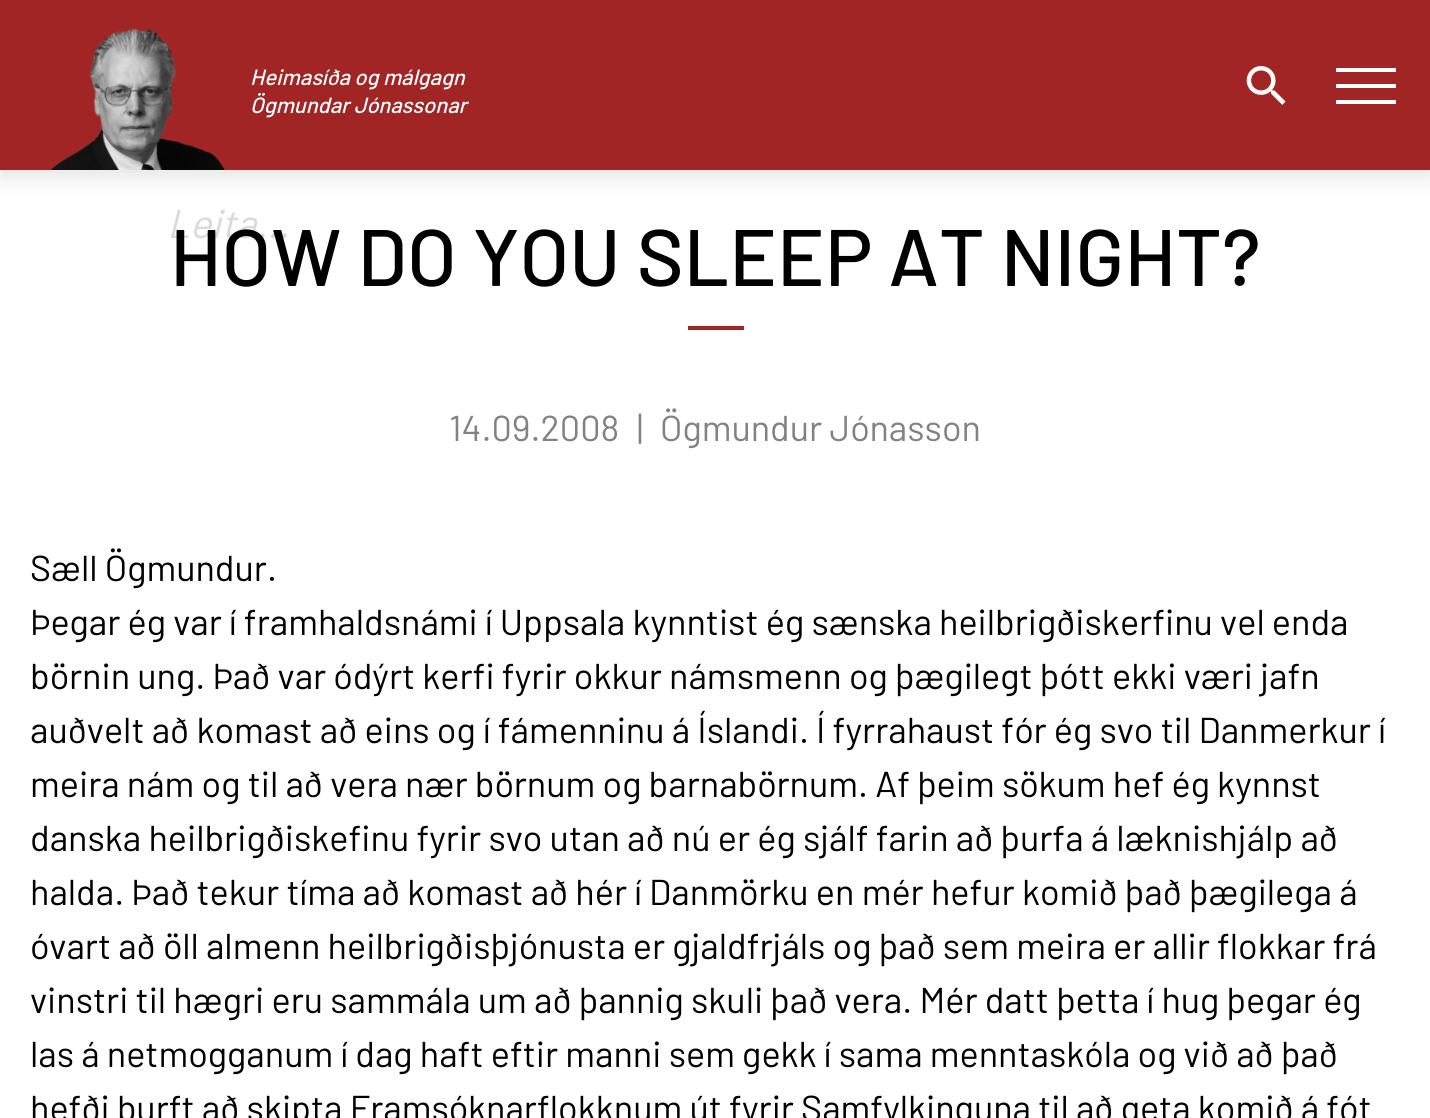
import math
import cairo

surface = cairo.ImageSurface(cairo.FORMAT_RGB24, 1430, 1118)
c = cairo.Context(surface)
options = cairo.FontOptions()
options.set_hint_metrics(cairo.HINT_METRICS_OFF)
options.set_hint_style(cairo.HINT_STYLE_NONE)
c.set_font_options(options)
c.set_miter_limit(4)
def C(code):
 c.set_source_rgb(*(v / 255 for v in bytes.fromhex(code[-6:])))
def F(family, size, italic, bold):
 c.select_font_face(family, cairo.FONT_SLANT_ITALIC if italic else cairo.FONT_SLANT_NORMAL, cairo.FONT_WEIGHT_BOLD if bold else cairo.FONT_WEIGHT_NORMAL)
 c.set_font_size(size)
def T(x, y, s):
 c.move_to(x, y)
 c.show_text(s)
def R(x, y, w, h):
 c.rectangle(x, y, w, h)
 c.fill()
def Q(x, y, w, h, r):
 c.new_sub_path()
 for i, (u, v) in enumerate([(x + w - r, y + h - r), (x + r, y + h - r), (x + r, y + r), (x + w - r, y + r)]):
  c.arc(u, v, r, i * math.pi / 2, (i + 1) * math.pi / 2)
 c.close_path()
def S(x, y, w, h, r, blur, alpha):
 c.push_group_with_content(cairo.CONTENT_ALPHA)
 c.set_operator(cairo.OPERATOR_SOURCE)
 for i in range(15, -16, -2):
  e = blur * i / 6
  if min(w, h) + 2 * e > 0:
   c.set_source_rgba(0, 0, 0, alpha * math.erfc((i - 1) / 8.5) / 2)
   Q(x - e, y - e, w + 2 * e, h + 2 * e, max(0, min(r + e + blur * .6, min(w, h) / 2 + e)))
   c.fill()
 c.mask(c.pop_group())
def I(path, x, y, w, h):
 c.save()
 c.set_source_surface(cairo.ImageSurface.create_from_png(path), x, y)
 c.rectangle(x, y, w, h)
 c.fill()
 c.restore()
C('ffffff')
c.paint()
C('000000')
S(0,8,1430,170,0,10,.1)
C('a22525')
R(0,0,1430,170)
I('1.png',50,28,175,142)
F('Barlow Medium',22,1,0)
C('ffffff')
T(250,85,'Heimasíða og málgagn')
T(250,113,'Ögmundar Jónassonar')
I('2.png',1246,66,40,39)
R(1336,68,60,4)
R(1336,84,60,4)
R(1336,100,60,4)
F('Barlow',40,1,0)
C('dadada')
T(167,238,'Leita...')
F('Barlow Medium',80,0,0)
C('000000')
T(170,286,'HOW DO YOU SLEEP AT NIGHT?')
C('a22525')
R(688,326,56,4)
F('Barlow',36,0,0)
C('828282')
T(449,441,'14.09.2008')
T(637,441,'|')
T(660,441,'Ögmundur Jónasson')
C('000000')
T(30,581,'Sæll Ögmundur.')
T(30,635,'Þegar ég var í framhaldsnámi í Uppsala kynntist ég sænska heilbrigðiskerfinu vel enda')
T(30,689,'börnin ung. Það var ódýrt kerfi fyrir okkur námsmenn og þægilegt þótt ekki væri jafn')
T(30,743,'auðvelt að komast að eins og í fámenninu á Íslandi. Í fyrrahaust fór ég svo til Danmerkur í')
T(30,797,'meira nám og til að vera nær börnum og barnabörnum. Af þeim sökum hef ég kynnst')
T(30,851,'danska heilbrigðiskefinu fyrir svo utan að nú er ég sjálf farin að þurfa á læknishjálp að')
T(30,905,'halda. Það tekur tíma að komast að hér í Danmörku en mér hefur komið það þægilega á')
T(30,959,'óvart að öll almenn heilbrigðisþjónusta er gjaldfrjáls og það sem meira er allir flokkar frá')
T(30,1013,'vinstri til hægri eru sammála um að þannig skuli það vera. Mér datt þetta í hug þegar ég')
T(30,1067,'las á netmogganum í dag haft eftir manni sem gekk í sama menntaskóla og við að það')
T(30,1121,'hefði þurft að skipta Framsóknarflokknum út fyrir Samfylkinguna til að geta komið á fót')
surface.write_to_png('o.png')
